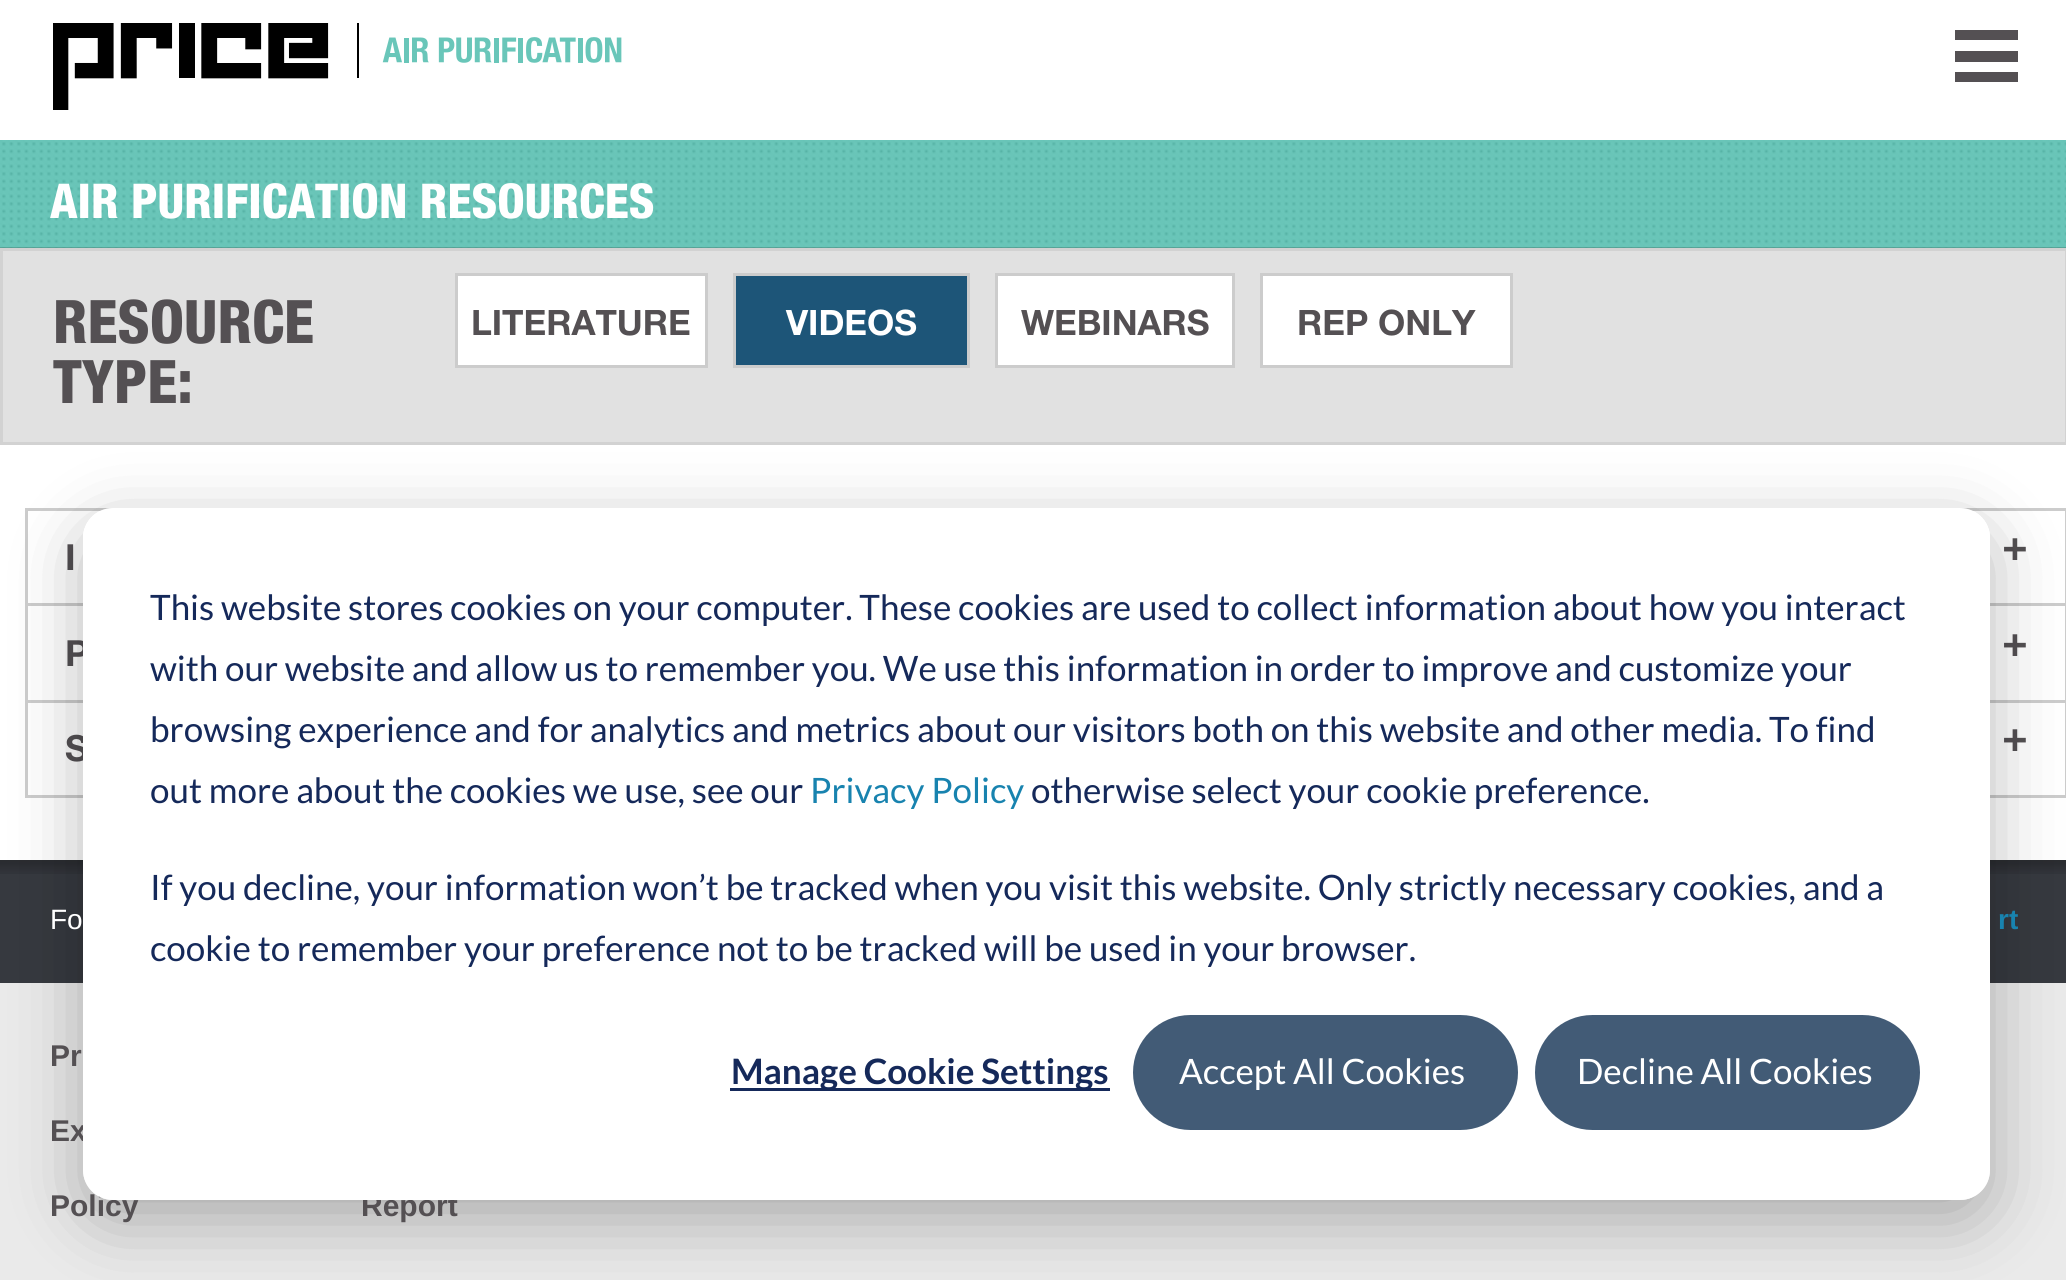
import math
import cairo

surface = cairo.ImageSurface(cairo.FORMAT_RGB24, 2066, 1280)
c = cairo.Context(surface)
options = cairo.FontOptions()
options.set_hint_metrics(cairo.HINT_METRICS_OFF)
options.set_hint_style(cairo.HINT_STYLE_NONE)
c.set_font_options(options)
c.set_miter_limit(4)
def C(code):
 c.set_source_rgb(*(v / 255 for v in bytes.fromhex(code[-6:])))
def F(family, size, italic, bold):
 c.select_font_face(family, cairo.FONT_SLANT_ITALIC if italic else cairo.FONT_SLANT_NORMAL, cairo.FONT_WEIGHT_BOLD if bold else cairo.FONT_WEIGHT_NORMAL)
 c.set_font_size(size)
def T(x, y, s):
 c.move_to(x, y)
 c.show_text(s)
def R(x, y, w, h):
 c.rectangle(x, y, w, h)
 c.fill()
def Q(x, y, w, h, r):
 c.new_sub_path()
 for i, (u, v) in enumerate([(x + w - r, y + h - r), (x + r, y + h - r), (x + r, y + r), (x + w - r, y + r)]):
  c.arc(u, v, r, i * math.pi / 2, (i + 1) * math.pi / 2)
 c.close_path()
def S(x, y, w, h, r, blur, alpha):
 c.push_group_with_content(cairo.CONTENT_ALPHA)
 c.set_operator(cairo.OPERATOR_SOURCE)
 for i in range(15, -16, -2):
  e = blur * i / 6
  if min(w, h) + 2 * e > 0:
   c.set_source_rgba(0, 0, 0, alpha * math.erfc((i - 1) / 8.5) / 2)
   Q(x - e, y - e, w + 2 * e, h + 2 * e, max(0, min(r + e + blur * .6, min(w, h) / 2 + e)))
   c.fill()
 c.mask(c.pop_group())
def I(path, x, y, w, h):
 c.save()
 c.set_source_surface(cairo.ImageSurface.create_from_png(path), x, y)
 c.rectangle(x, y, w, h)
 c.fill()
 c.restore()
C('eaeaea')
c.paint()
C('ffffff')
R(0,0,2066,140)
I('1.png',53,23,569,87)
C('545053')
R(1955,30,63,10)
R(1955,51,63,11)
R(1955,72,63,10)
C('ffffff')
R(0,445,2066,415)
C('48877b')
R(0,247,2066,1)
I('2.png',0,140,2066,108)
F('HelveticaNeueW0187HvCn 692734',48,0,0)
C('ffffff')
T(50,218,'AIR PURIFICATION RESOURCES')
C('e1e1e1')
c.rectangle(1.5,249.5,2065,194)
c.fill_preserve()
C('d2d2d2')
c.set_line_width(3)
c.stroke()
F('HelveticaNeueW0187HvCn 692734',60,0,0)
C('545053')
T(53,343,'RESOURCE')
T(53,403,'TYPE:')
C('ffffff')
c.rectangle(456.5,274.5,250,92)
c.fill_preserve()
C('cccccc')
c.stroke()
F('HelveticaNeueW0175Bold',35,0,1)
C('545053')
T(471,335,'LITERATURE')
C('1d5578')
c.rectangle(734.5,274.5,234,92)
c.fill_preserve()
C('cccccc')
c.stroke()
C('ffffff')
T(786,335,'VIDEOS')
c.rectangle(996.5,274.5,237,92)
c.fill_preserve()
C('cccccc')
c.stroke()
C('545053')
T(1021,335,'WEBINARS')
C('ffffff')
c.rectangle(1261.5,274.5,250,92)
c.fill_preserve()
C('cccccc')
c.stroke()
C('545053')
T(1297,335,'REP ONLY')
C('cccccc')
R(25,508,2041,3)
R(2065,508,1,95)
R(25,508,3,95)
F('HelveticaNeueW0175Bold',36,0,1)
C('545053')
T(65,570,'I')
F('HelveticaNeueW0175Bold',43,0,1)
T(2002,560,'+')
C('cccccc')
R(25,603,2041,3)
R(2065,603,1,97)
R(25,603,3,97)
F('HelveticaNeueW0175Bold',36,0,1)
C('545053')
T(65,666,'P')
F('HelveticaNeueW0175Bold',43,0,1)
T(2002,656,'+')
c.rectangle(26.5,701.5,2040,95)
C('cccccc')
c.stroke()
F('HelveticaNeueW0175Bold',36,0,1)
C('545053')
T(65,761,'S')
F('HelveticaNeueW0175Bold',43,0,1)
T(2002,751,'+')
C('36393f')
R(0,874,2066,109)
I('3.png',0,860,2066,14)
c.save()
c.set_fill_rule(cairo.FILL_RULE_EVEN_ODD)
c.new_path()
c.move_to(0,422)
c.line_to(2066,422)
c.line_to(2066,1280)
c.line_to(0,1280)
c.close_path()
c.move_to(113,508)
c.line_to(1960,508)
c.curve_to(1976.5,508,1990,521.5,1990,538)
c.line_to(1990,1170)
c.curve_to(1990,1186.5,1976.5,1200,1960,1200)
c.line_to(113,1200)
c.curve_to(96.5,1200,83,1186.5,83,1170)
c.line_to(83,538)
c.curve_to(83,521.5,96.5,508,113,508)
c.close_path()
c.clip()
C('000000')
S(83,528,1907,692,30,35,.28)
c.restore()
F('Liberation Sans',30,0,1)
C('545053')
T(50,1141,'Ex')
T(50,1216,'Policy')
T(361,1216,'Report')
C('ffffff')
Q(83,508,1907,692,30)
c.fill()
F('Lato',35,0,0)
C('15295a')
T(150,620,'This website stores cookies on your computer. These cookies are used to collect information about how you interact')
T(150,681,'with our website and allow us to remember you. We use this information in order to improve and customize your')
T(150,742,'browsing experience and for analytics and metrics about our visitors both on this website and other media. To find')
T(150,803,'out more about the cookies we use, see our')
C('1883af')
T(810,803,'Privacy Policy')
C('15295a')
T(1031,803,'otherwise select your cookie preference.')
T(150,900,'If you decline, your information won’t be tracked when you visit this website. Only strictly necessary cookies, and a')
T(150,961,'cookie to remember your preference not to be tracked will be used in your browser.')
R(730,1088,380,3)
F('Lato',35,0,1)
T(731,1084,'Manage Cookie Settings')
C('425b76')
Q(1134.5,1016.5,382,112,56)
c.fill_preserve()
c.stroke()
F('Lato',35,0,0)
C('ffffff')
T(1179,1084,'Accept All Cookies')
C('425b76')
Q(1536.5,1016.5,382,112,56)
c.fill_preserve()
c.stroke()
C('ffffff')
T(1577,1084,'Decline All Cookies')
F('Liberation Sans',28,0,0)
T(50,929,'Fo')
F('Liberation Sans',28,0,1)
C('1883af')
T(1998,929,'rt')
F('Liberation Sans',30,0,1)
C('545053')
T(50,1066,'Pr')
surface.write_to_png('o.png')
